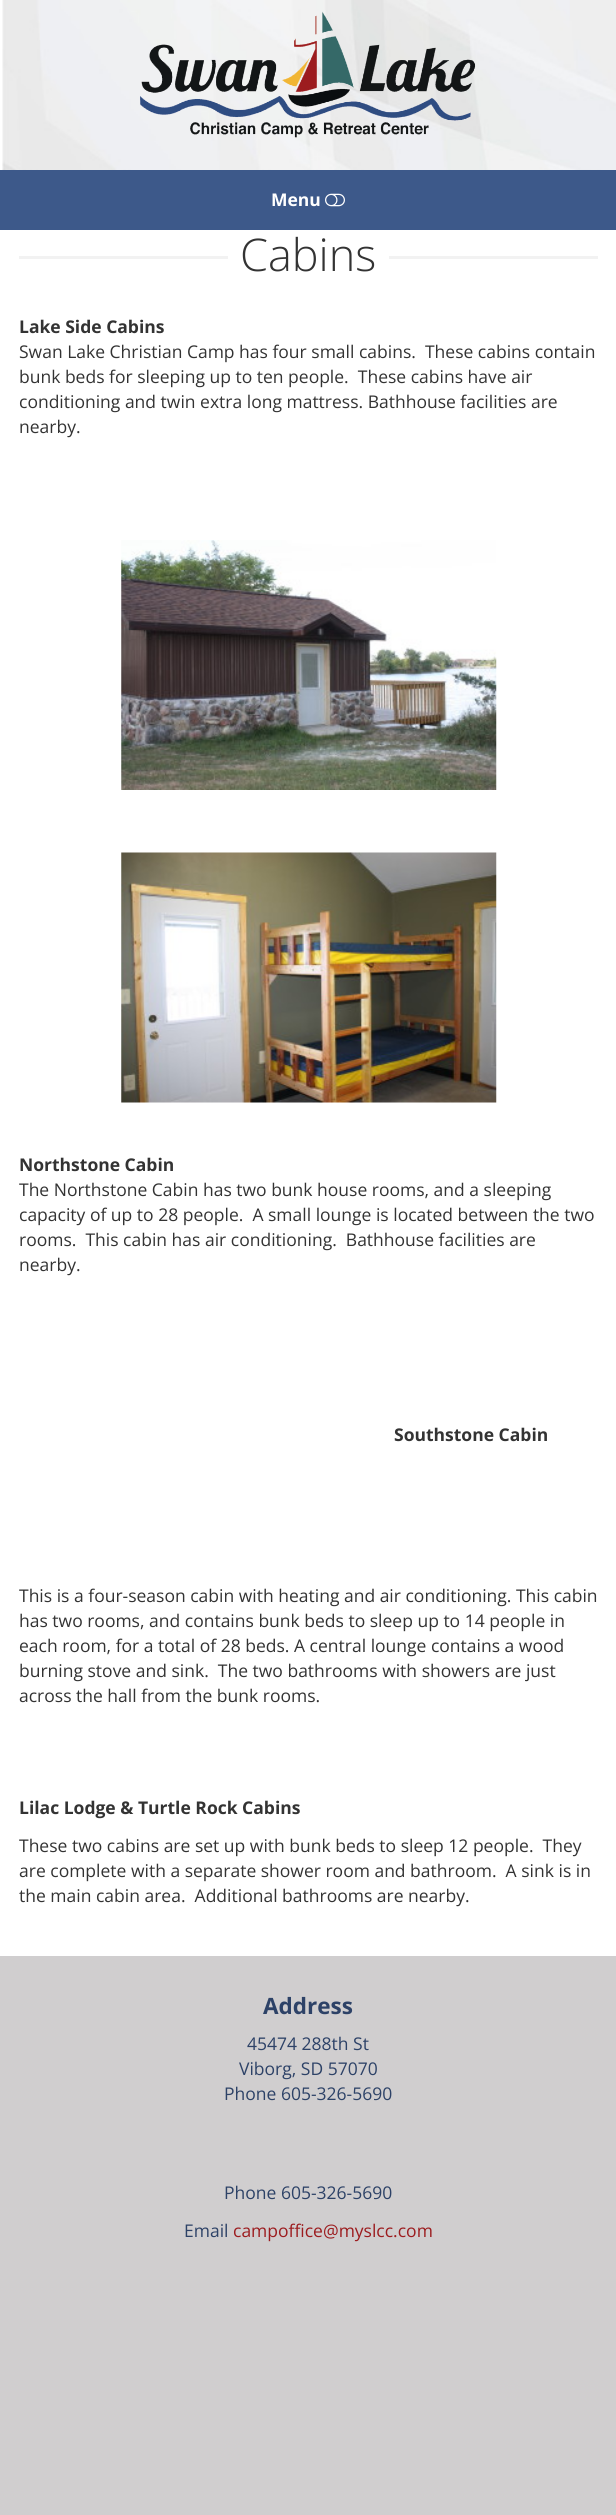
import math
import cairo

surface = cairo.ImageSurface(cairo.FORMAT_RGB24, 616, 2515)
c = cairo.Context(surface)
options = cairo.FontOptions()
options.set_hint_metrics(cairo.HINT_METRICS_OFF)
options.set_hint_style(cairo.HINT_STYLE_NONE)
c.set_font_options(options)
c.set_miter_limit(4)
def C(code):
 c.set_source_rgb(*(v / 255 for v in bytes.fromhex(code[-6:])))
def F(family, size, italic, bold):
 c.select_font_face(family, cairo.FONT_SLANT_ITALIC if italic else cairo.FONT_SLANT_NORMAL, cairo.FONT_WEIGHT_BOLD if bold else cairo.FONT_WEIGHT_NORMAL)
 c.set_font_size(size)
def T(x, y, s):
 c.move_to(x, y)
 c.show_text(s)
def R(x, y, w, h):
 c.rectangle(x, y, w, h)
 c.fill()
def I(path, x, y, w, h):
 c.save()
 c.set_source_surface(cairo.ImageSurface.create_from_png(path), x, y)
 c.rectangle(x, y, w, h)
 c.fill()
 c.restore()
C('ffffff')
c.paint()
I('1.png',2,0,614,170)
I('2.png',140,11,336,127)
C('3d598a')
R(0,170,616,60)
F('Open Sans',17.5,0,1)
C('ffffff')
T(271,206,'Menu')
I('3.png',325,193,20,14)
C('f2f2f2')
R(19,256,209,3)
F('Open Sans Light',45,0,0)
C('333333')
T(240,271,'Cabins')
C('f2f2f2')
R(389,256,209,3)
F('Open Sans',17.5,0,1)
C('333333')
T(19,333,'Lake Side Cabins')
F('Open Sans',17.5,0,0)
T(19,358,'Swan Lake Christian Camp has four small cabins.  These cabins contain')
T(19,383,'bunk beds for sleeping up to ten people.  These cabins have air')
T(19,408,'conditioning and twin extra long mattress. Bathhouse facilities are')
T(19,433,'nearby.')
I('4.png',121,540,376,250)
I('5.png',121,852,376,251)
F('Open Sans',17.5,0,1)
T(19,1171,'Northstone Cabin')
F('Open Sans',17.5,0,0)
T(19,1196,'The Northstone Cabin has two bunk house rooms, and a sleeping')
T(19,1221,'capacity of up to 28 people.  A small lounge is located between the two')
T(19,1246,'rooms.  This cabin has air conditioning.  Bathhouse facilities are')
T(19,1271,'nearby.')
F('Open Sans',17.5,0,1)
T(394,1441,'Southstone Cabin')
F('Open Sans',17.5,0,0)
T(19,1602,'This is a four-season cabin with heating and air conditioning. This cabin')
T(19,1627,'has two rooms, and contains bunk beds to sleep up to 14 people in')
T(19,1652,'each room, for a total of 28 beds. A central lounge contains a wood')
T(19,1677,'burning stove and sink.  The two bathrooms with showers are just')
T(19,1702,'across the hall from the bunk rooms.')
F('Open Sans',17.5,0,1)
T(19,1814,'Lilac Lodge & Turtle Rock Cabins')
F('Open Sans',17.5,0,0)
T(19,1852,'These two cabins are set up with bunk beds to sleep 12 people.  They')
T(19,1877,'are complete with a separate shower room and bathroom.  A sink is in')
T(19,1902,'the main cabin area.  Additional bathrooms are nearby.')
C('d0cecf')
R(0,1956,616,559)
F('Open Sans',22.5,0,1)
C('2d4267')
T(263,2014,'Address')
F('Open Sans',17.5,0,0)
T(247,2050,'45474 288th St')
T(239,2075,'Viborg, SD 57070')
T(224,2100,'Phone 605-326-5690')
T(224,2199,'Phone 605-326-5690')
T(184,2237,'Email')
C('9c1c1f')
T(233,2237,'campoffice@myslcc.com')
surface.write_to_png('o.png')
